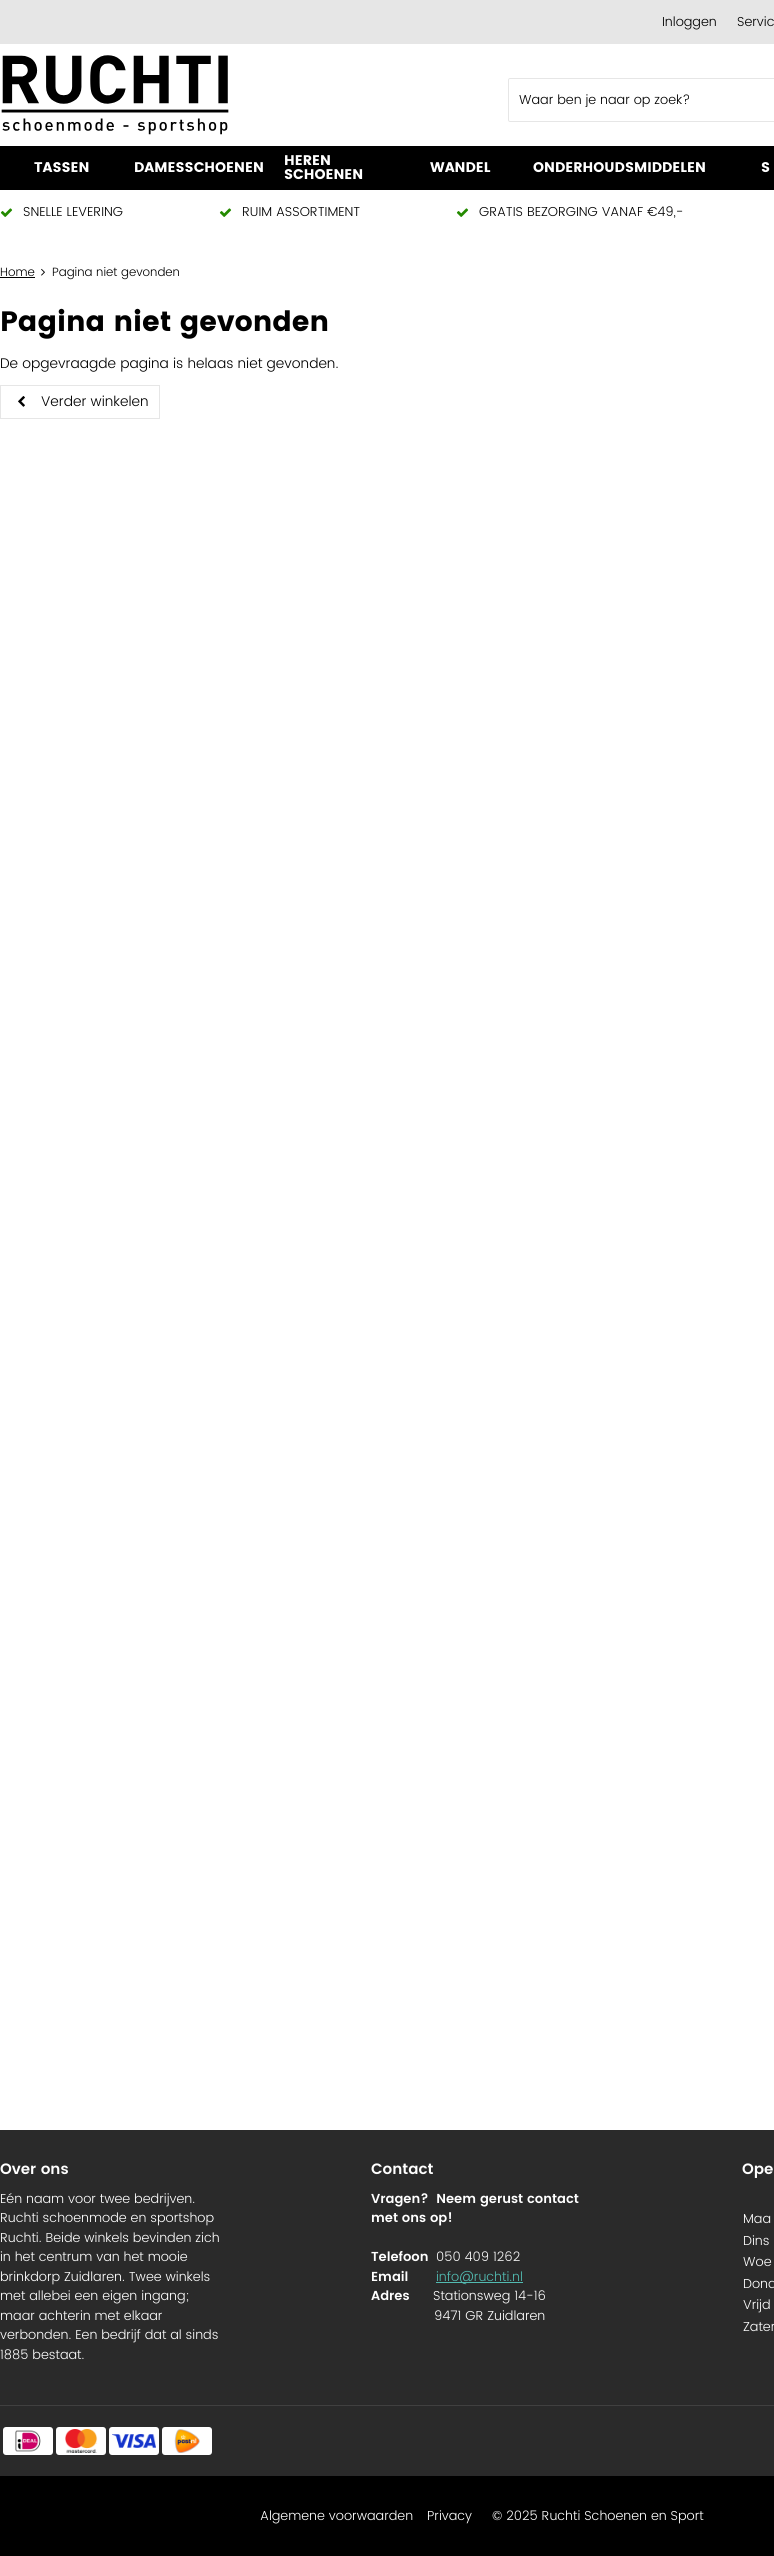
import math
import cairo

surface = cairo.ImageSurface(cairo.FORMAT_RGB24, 774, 2556)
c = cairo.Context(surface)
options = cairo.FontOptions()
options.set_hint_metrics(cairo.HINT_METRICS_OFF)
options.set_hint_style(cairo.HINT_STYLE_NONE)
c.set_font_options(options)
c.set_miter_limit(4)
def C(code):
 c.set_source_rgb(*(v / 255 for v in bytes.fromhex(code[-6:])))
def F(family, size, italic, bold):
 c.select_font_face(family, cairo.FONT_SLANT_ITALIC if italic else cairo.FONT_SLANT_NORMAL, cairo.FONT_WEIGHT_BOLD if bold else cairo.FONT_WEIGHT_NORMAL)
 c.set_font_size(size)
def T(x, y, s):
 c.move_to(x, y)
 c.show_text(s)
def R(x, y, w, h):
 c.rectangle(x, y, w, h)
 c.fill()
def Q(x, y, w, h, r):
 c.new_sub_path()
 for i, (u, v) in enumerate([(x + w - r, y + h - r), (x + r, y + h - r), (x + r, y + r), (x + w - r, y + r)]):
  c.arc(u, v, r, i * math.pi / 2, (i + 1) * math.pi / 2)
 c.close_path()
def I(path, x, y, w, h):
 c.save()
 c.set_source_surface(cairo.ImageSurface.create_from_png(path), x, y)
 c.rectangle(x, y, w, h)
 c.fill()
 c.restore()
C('ffffff')
c.paint()
C('e6e6e6')
R(0,0,774,44)
F('Poppins Light',13,0,0)
C('000000')
T(662,26,'Inloggen')
T(737,26,'Servic')
I('1.png',1,55,228,80)
Q(508.5,78.5,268,43,1.5)
C('e6e6e6')
c.set_line_width(1)
c.stroke()
c.save()
c.rectangle(519,94,228,13)
c.clip()
C('000000')
T(519,104,'Waar ben je naar op zoek?')
c.restore()
C('000000')
R(0,146,774,44)
F('Poppins',14,0,1)
C('ffffff')
T(34,172,'TASSEN')
T(134,172,'DAMESSCHOENEN')
T(284,165,'HEREN')
T(284,179,'SCHOENEN')
T(430,172,'WANDEL')
T(533,172,'ONDERHOUDSMIDDELEN')
T(761,172,'S')
I('2.png',0,208,13,9)
F('Poppins Light',13,0,0)
C('000000')
T(23,216,'SNELLE LEVERING')
I('2.png',219,208,13,9)
T(242,216,'RUIM ASSORTIMENT')
I('2.png',456,208,13,9)
T(479,216,'GRATIS BEZORGING VANAF €49,-')
F('Poppins Light',12,0,0)
T(0,276,'Home')
R(0,277,35,1)
I('3.png',41,268,4,8)
T(52,276,'Pagina niet gevonden')
F('Poppins',28,0,1)
T(0,331,'Pagina niet gevonden')
F('Poppins Light',14,0,0)
T(0,368,'De opgevraagde pagina is helaas niet gevonden.')
c.rectangle(.5,385.5,159,33)
C('e6e6e6')
c.stroke()
I('4.png',18,396,7,11)
C('000000')
T(41,406,'Verder winkelen')
C('2a2a2a')
R(0,2130,774,346)
F('Poppins SemiBold',15,0,0)
C('ffffff')
T(0,2174,'Over ons')
F('Poppins Light',13,0,0)
T(0,2203,'Eén naam voor twee bedrijven.')
T(0,2222,'Ruchti schoenmode en sportshop')
T(0,2242,'Ruchti. Beide winkels bevinden zich')
T(0,2261,'in het centrum van het mooie')
T(0,2281,'brinkdorp Zuidlaren. Twee winkels')
T(0,2300,'met allebei een eigen ingang;')
T(0,2320,'maar achterin met elkaar')
T(0,2339,'verbonden. Een bedrijf dat al sinds')
T(0,2359,'1885 bestaat.')
F('Poppins SemiBold',15,0,0)
T(371,2174,'Contact')
F('Poppins SemiBold',13,0,0)
T(371,2203,'Vragen?  Neem gerust contact')
T(371,2222,'met ons op!')
T(371,2261,'Telefoon')
F('Poppins Light',13,0,0)
T(436,2261,'050 409 1262')
F('Poppins SemiBold',13,0,0)
T(371,2281,'Email')
C('52bbb1')
R(436,2282,87,1)
F('Poppins Light',13,0,0)
T(436,2281,'info@ruchti.nl')
F('Poppins SemiBold',13,0,0)
C('ffffff')
T(371,2300,'Adres')
F('Poppins Light',13,0,0)
T(433,2300,'Stationsweg 14-16')
T(434,2320,'9471 GR Zuidlaren')
F('Poppins SemiBold',15,0,0)
T(742,2174,'Ope')
F('Poppins Light',13,0,0)
T(743,2223,'Maa')
T(743,2245,'Dins')
T(743,2266,'Woe')
T(743,2288,'Dond')
T(743,2309,'Vrijd')
T(743,2331,'Zater')
C('404040')
R(0,2405,774,1)
C('ffffff')
Q(3,2427,50,28,3)
c.fill()
I('5.png',15,2430,26,22)
Q(56,2427,50,28,3)
c.fill()
I('6.png',65,2429,33,24)
Q(109,2427,50,28,3)
c.fill()
I('7.png',112,2434,44,14)
Q(162,2427,50,28,3)
c.fill()
I('8.png',174,2429,26,24)
C('000000')
R(0,2476,774,80)
C('ffffff')
T(260,2520,'Algemene voorwaarden')
T(427,2520,'Privacy')
T(492,2520,'© 2025 Ruchti Schoenen en Sport')
surface.write_to_png('o.png')
